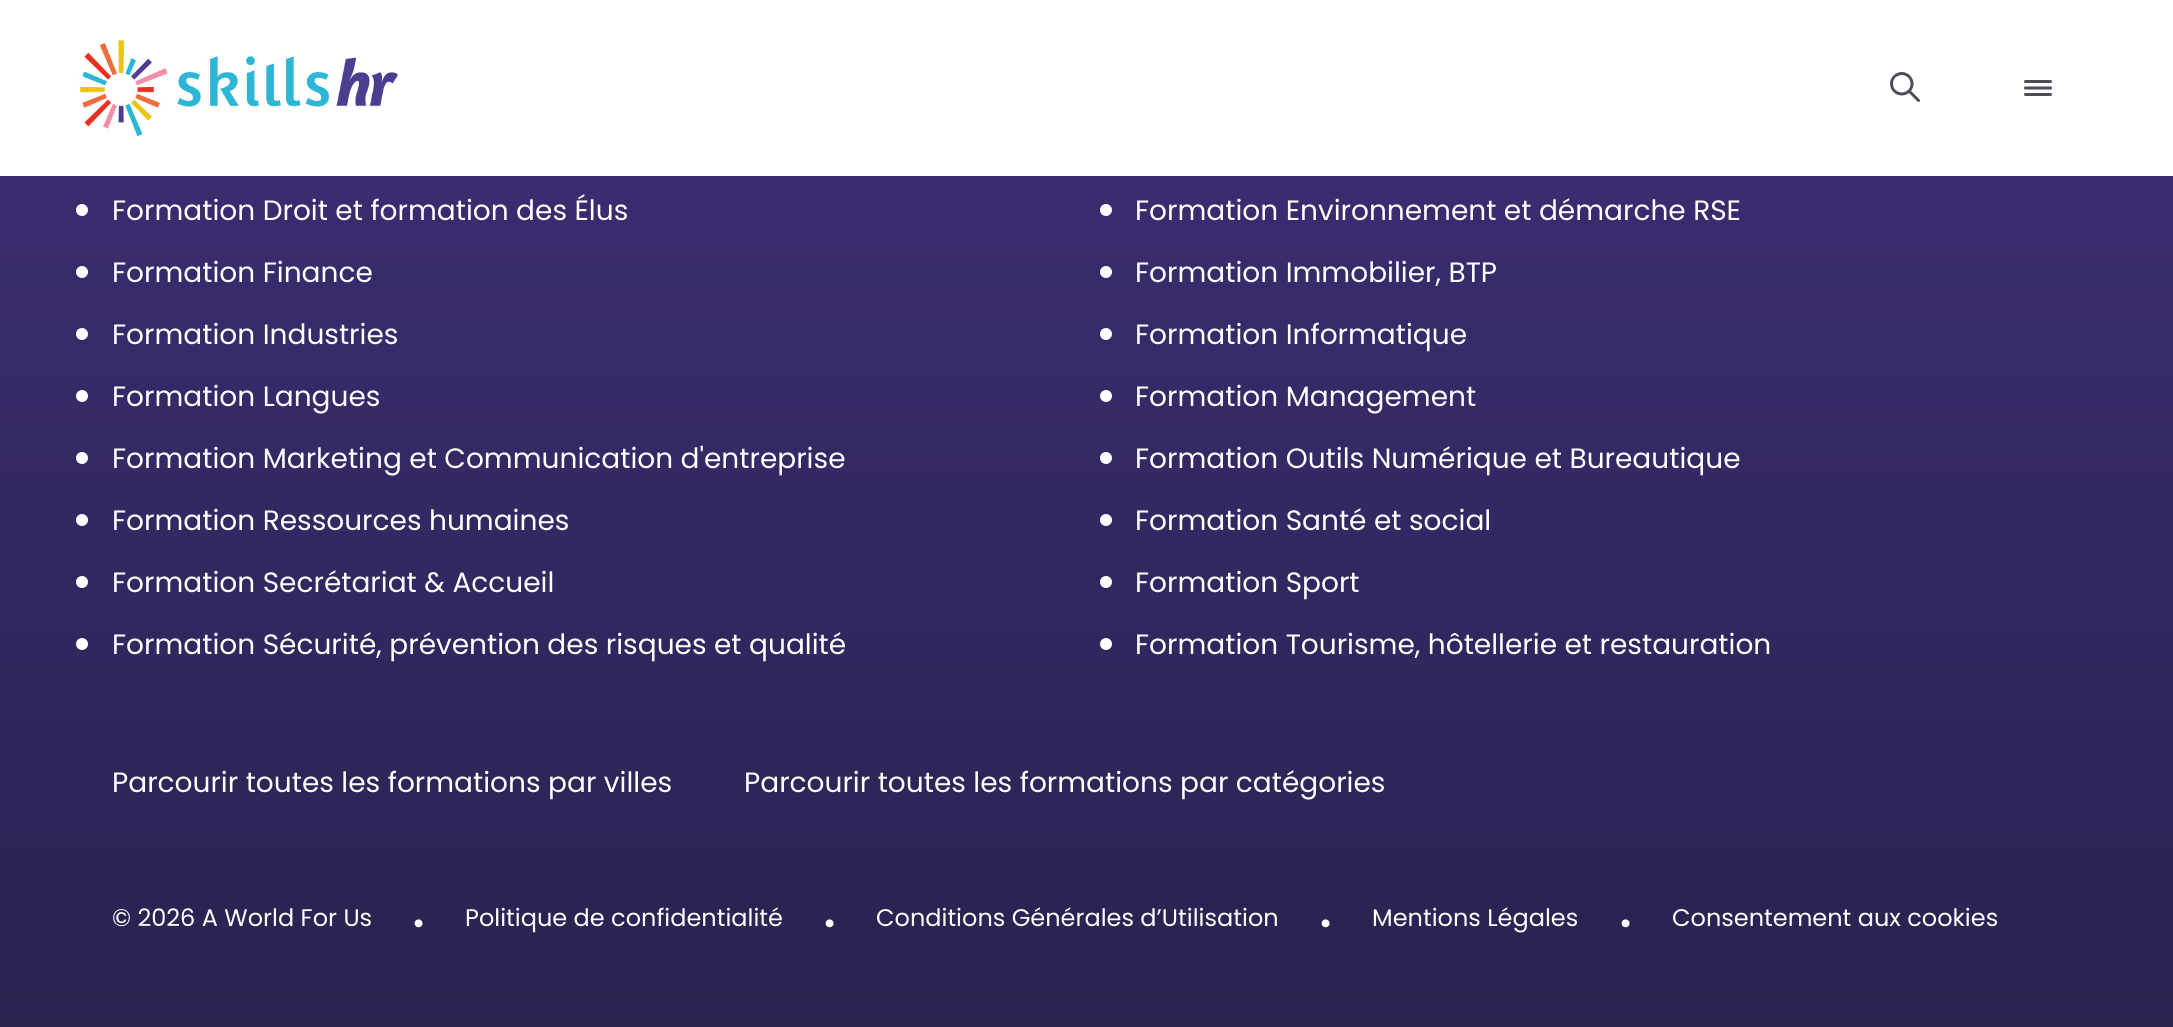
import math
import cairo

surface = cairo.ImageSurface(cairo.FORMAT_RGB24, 2173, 1027)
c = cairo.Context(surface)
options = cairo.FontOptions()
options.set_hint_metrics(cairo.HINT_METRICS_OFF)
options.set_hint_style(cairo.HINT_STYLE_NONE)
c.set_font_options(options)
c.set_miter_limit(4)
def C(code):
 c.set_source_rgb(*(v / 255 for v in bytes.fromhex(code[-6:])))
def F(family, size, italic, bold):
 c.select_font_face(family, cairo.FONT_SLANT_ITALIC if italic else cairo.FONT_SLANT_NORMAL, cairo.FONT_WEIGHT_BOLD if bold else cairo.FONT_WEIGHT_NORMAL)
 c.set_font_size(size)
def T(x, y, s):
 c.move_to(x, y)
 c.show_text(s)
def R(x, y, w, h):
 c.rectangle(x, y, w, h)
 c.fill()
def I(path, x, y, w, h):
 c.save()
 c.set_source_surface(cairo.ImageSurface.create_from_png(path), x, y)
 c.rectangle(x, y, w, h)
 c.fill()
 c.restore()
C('ffffff')
c.paint()
I('1.png',80,40,318,96)
I('2.png',1890,72,30,30)
I('3.png',2024,80,28,16)
gradient = cairo.LinearGradient(1087,-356,1087,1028)
gradient.add_color_stop_rgba(0,0.267,0.196,0.514,1)
gradient.add_color_stop_rgba(1,0.165,0.133,0.31,1)
c.set_source(gradient)
R(0,176,2173,851)
C('ffffff')
c.arc(82,210,6,0,2 * math.pi)
c.fill()
F('Poppins',28,0,0)
T(112,220,'Formation Droit et formation des Élus')
c.new_path()
c.arc(1106,210,6,0,2 * math.pi)
c.fill()
T(1135,220,'Formation Environnement et démarche RSE')
c.new_path()
c.arc(82,272,6,0,2 * math.pi)
c.fill()
T(112,282,'Formation Finance')
c.new_path()
c.arc(1106,272,6,0,2 * math.pi)
c.fill()
T(1135,282,'Formation Immobilier, BTP')
c.new_path()
c.arc(82,334,6,0,2 * math.pi)
c.fill()
T(112,344,'Formation Industries')
c.new_path()
c.arc(1106,334,6,0,2 * math.pi)
c.fill()
T(1135,344,'Formation Informatique')
c.new_path()
c.arc(82,396,6,0,2 * math.pi)
c.fill()
T(112,406,'Formation Langues')
c.new_path()
c.arc(1106,396,6,0,2 * math.pi)
c.fill()
T(1135,406,'Formation Management')
c.new_path()
c.arc(82,458,6,0,2 * math.pi)
c.fill()
T(112,468,'Formation Marketing et Communication d\'entreprise')
c.new_path()
c.arc(1106,458,6,0,2 * math.pi)
c.fill()
T(1135,468,'Formation Outils Numérique et Bureautique')
c.new_path()
c.arc(82,520,6,0,2 * math.pi)
c.fill()
T(112,530,'Formation Ressources humaines')
c.new_path()
c.arc(1106,520,6,0,2 * math.pi)
c.fill()
T(1135,530,'Formation Santé et social')
c.new_path()
c.arc(82,582,6,0,2 * math.pi)
c.fill()
T(112,592,'Formation Secrétariat & Accueil')
c.new_path()
c.arc(1106,582,6,0,2 * math.pi)
c.fill()
T(1135,592,'Formation Sport')
c.new_path()
c.arc(82,644,6,0,2 * math.pi)
c.fill()
T(112,654,'Formation Sécurité, prévention des risques et qualité')
c.new_path()
c.arc(1106,644,6,0,2 * math.pi)
c.fill()
T(1135,654,'Formation Tourisme, hôtellerie et restauration')
T(112,792,'Parcourir toutes les formations par villes')
T(744,792,'Parcourir toutes les formations par catégories')
F('Poppins',24,0,0)
T(112,926,'© 2026 A World For Us')
F('Poppins',32,0,0)
T(412,934,'•')
F('Poppins',24,0,0)
T(465,926,'Politique de confidentialité')
F('Poppins',32,0,0)
T(823,934,'•')
F('Poppins',24,0,0)
T(876,926,'Conditions Générales d’Utilisation')
F('Poppins',32,0,0)
T(1319,934,'•')
F('Poppins',24,0,0)
T(1372,926,'Mentions Légales')
F('Poppins',32,0,0)
T(1619,934,'•')
F('Poppins',24,0,0)
T(1672,926,'Consentement aux cookies')
surface.write_to_png('o.png')
